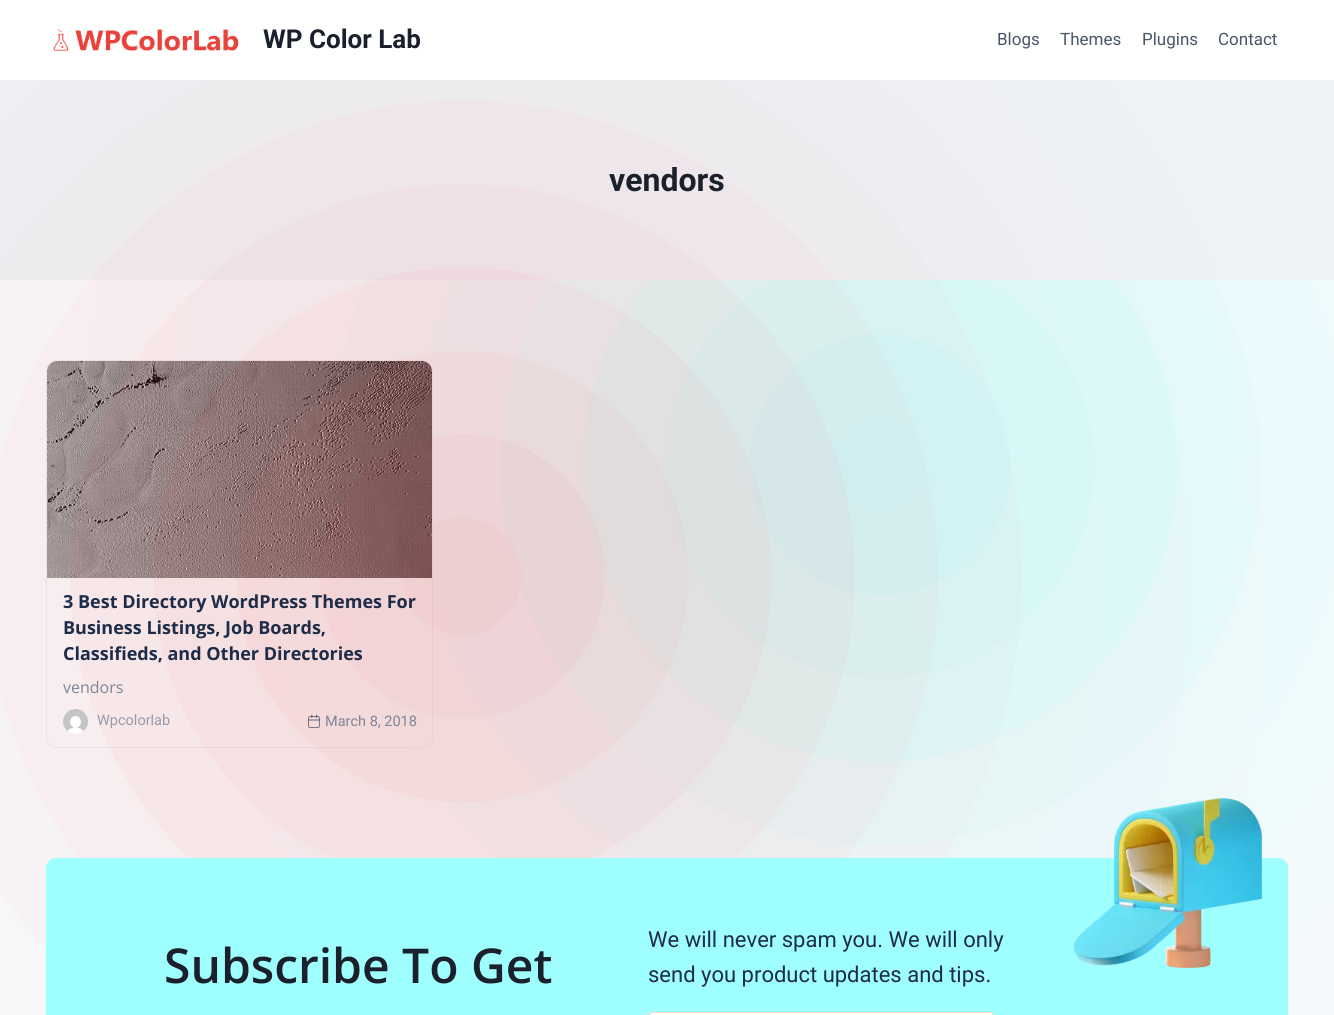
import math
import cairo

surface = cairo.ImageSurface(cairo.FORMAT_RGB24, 1334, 1015)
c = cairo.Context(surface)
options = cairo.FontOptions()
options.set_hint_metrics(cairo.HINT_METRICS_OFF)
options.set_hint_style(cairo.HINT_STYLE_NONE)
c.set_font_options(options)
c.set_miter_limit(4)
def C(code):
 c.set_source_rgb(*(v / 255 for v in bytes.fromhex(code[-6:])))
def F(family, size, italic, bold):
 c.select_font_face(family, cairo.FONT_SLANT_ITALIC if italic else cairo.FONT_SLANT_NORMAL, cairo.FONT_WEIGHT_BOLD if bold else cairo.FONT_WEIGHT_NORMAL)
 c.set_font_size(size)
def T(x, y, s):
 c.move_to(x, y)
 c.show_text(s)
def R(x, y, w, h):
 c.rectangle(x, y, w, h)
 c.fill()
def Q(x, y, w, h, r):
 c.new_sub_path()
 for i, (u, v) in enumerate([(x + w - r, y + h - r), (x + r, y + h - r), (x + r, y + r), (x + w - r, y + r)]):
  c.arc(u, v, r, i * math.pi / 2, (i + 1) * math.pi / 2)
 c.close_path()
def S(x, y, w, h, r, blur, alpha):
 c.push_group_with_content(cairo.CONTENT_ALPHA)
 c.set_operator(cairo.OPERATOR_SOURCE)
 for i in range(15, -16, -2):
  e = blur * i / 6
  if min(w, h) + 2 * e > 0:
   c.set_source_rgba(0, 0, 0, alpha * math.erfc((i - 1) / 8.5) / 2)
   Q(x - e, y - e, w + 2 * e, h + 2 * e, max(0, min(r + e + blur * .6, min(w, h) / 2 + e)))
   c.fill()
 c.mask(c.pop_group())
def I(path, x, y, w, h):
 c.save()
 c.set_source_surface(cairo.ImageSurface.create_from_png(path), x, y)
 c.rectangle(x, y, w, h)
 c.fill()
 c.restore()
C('f7fafc')
c.paint()
C('2afcf9')
S(625,209,511,511,255.5,250,.25)
C('edf2f7')
R(0,80,1334,200)
Q(46.5,360.5,386,387,9.5)
C('e6eff4')
c.set_line_width(1)
c.stroke()
I('2.png',47,361,385,217)
C('fc2a2d')
S(195,309,535,535,267.5,250,.25)
C('ffffff')
R(0,0,1334,80)
I('1.png',53,29,186,22)
F('Roboto',26,0,1)
C('1a202c')
T(263,48,'WP Color Lab')
F('Roboto',17,0,0)
C('4a5568')
T(997,45,'Blogs')
T(1060,45,'Themes')
T(1142,45,'Plugins')
T(1218,45,'Contact')
F('Roboto',32,0,1)
C('1a202c')
T(609,191,'vendors')
F('Open Sans',18,0,1)
C('1d2c49')
T(63,608,'3 Best Directory WordPress Themes For')
T(63,634,'Business Listings, Job Boards,')
T(63,660,'Classifieds, and Other Directories')
F('Open Sans',16,0,0)
C('7e8596')
T(63,693,'vendors')
I('3.png',63,709,25,25)
F('Roboto',14.5,0,0)
C('979aa8')
T(97,725,'Wpcolorlab')
I('4.png',308,714,13,14)
C('7e8596')
T(325,726,'March 8, 2018')
C('9ffffe')
Q(46,858,1242,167,10)
c.fill()
F('Open Sans SemiBold',48,0,0)
C('1a202c')
T(164,983,'Subscribe To Get')
F('Roboto',22,0,0)
C('1d2c49')
T(648,947,'We will never spam you. We will only')
T(648,982,'send you product updates and tips.')
C('ffffff')
c.new_path()
c.move_to(653,1013)
c.line_to(992,1013)
c.line_to(992,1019)
c.line_to(653,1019)
c.curve_to(651,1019,649,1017,649,1015)
c.line_to(649,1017)
c.curve_to(649,1015,651,1013,653,1013)
c.close_path()
c.fill()
c.new_path()
c.move_to(653,1012.5)
c.line_to(992.5,1012.5)
c.line_to(992.5,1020.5)
c.line_to(653,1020.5)
c.curve_to(650.5,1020.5,648.5,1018.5,648.5,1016)
c.line_to(648.5,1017)
c.curve_to(648.5,1014.5,650.5,1012.5,653,1012.5)
c.close_path()
C('ffdcc2')
c.stroke()
I('5.png',1074,798,188,170)
surface.write_to_png('o.png')
